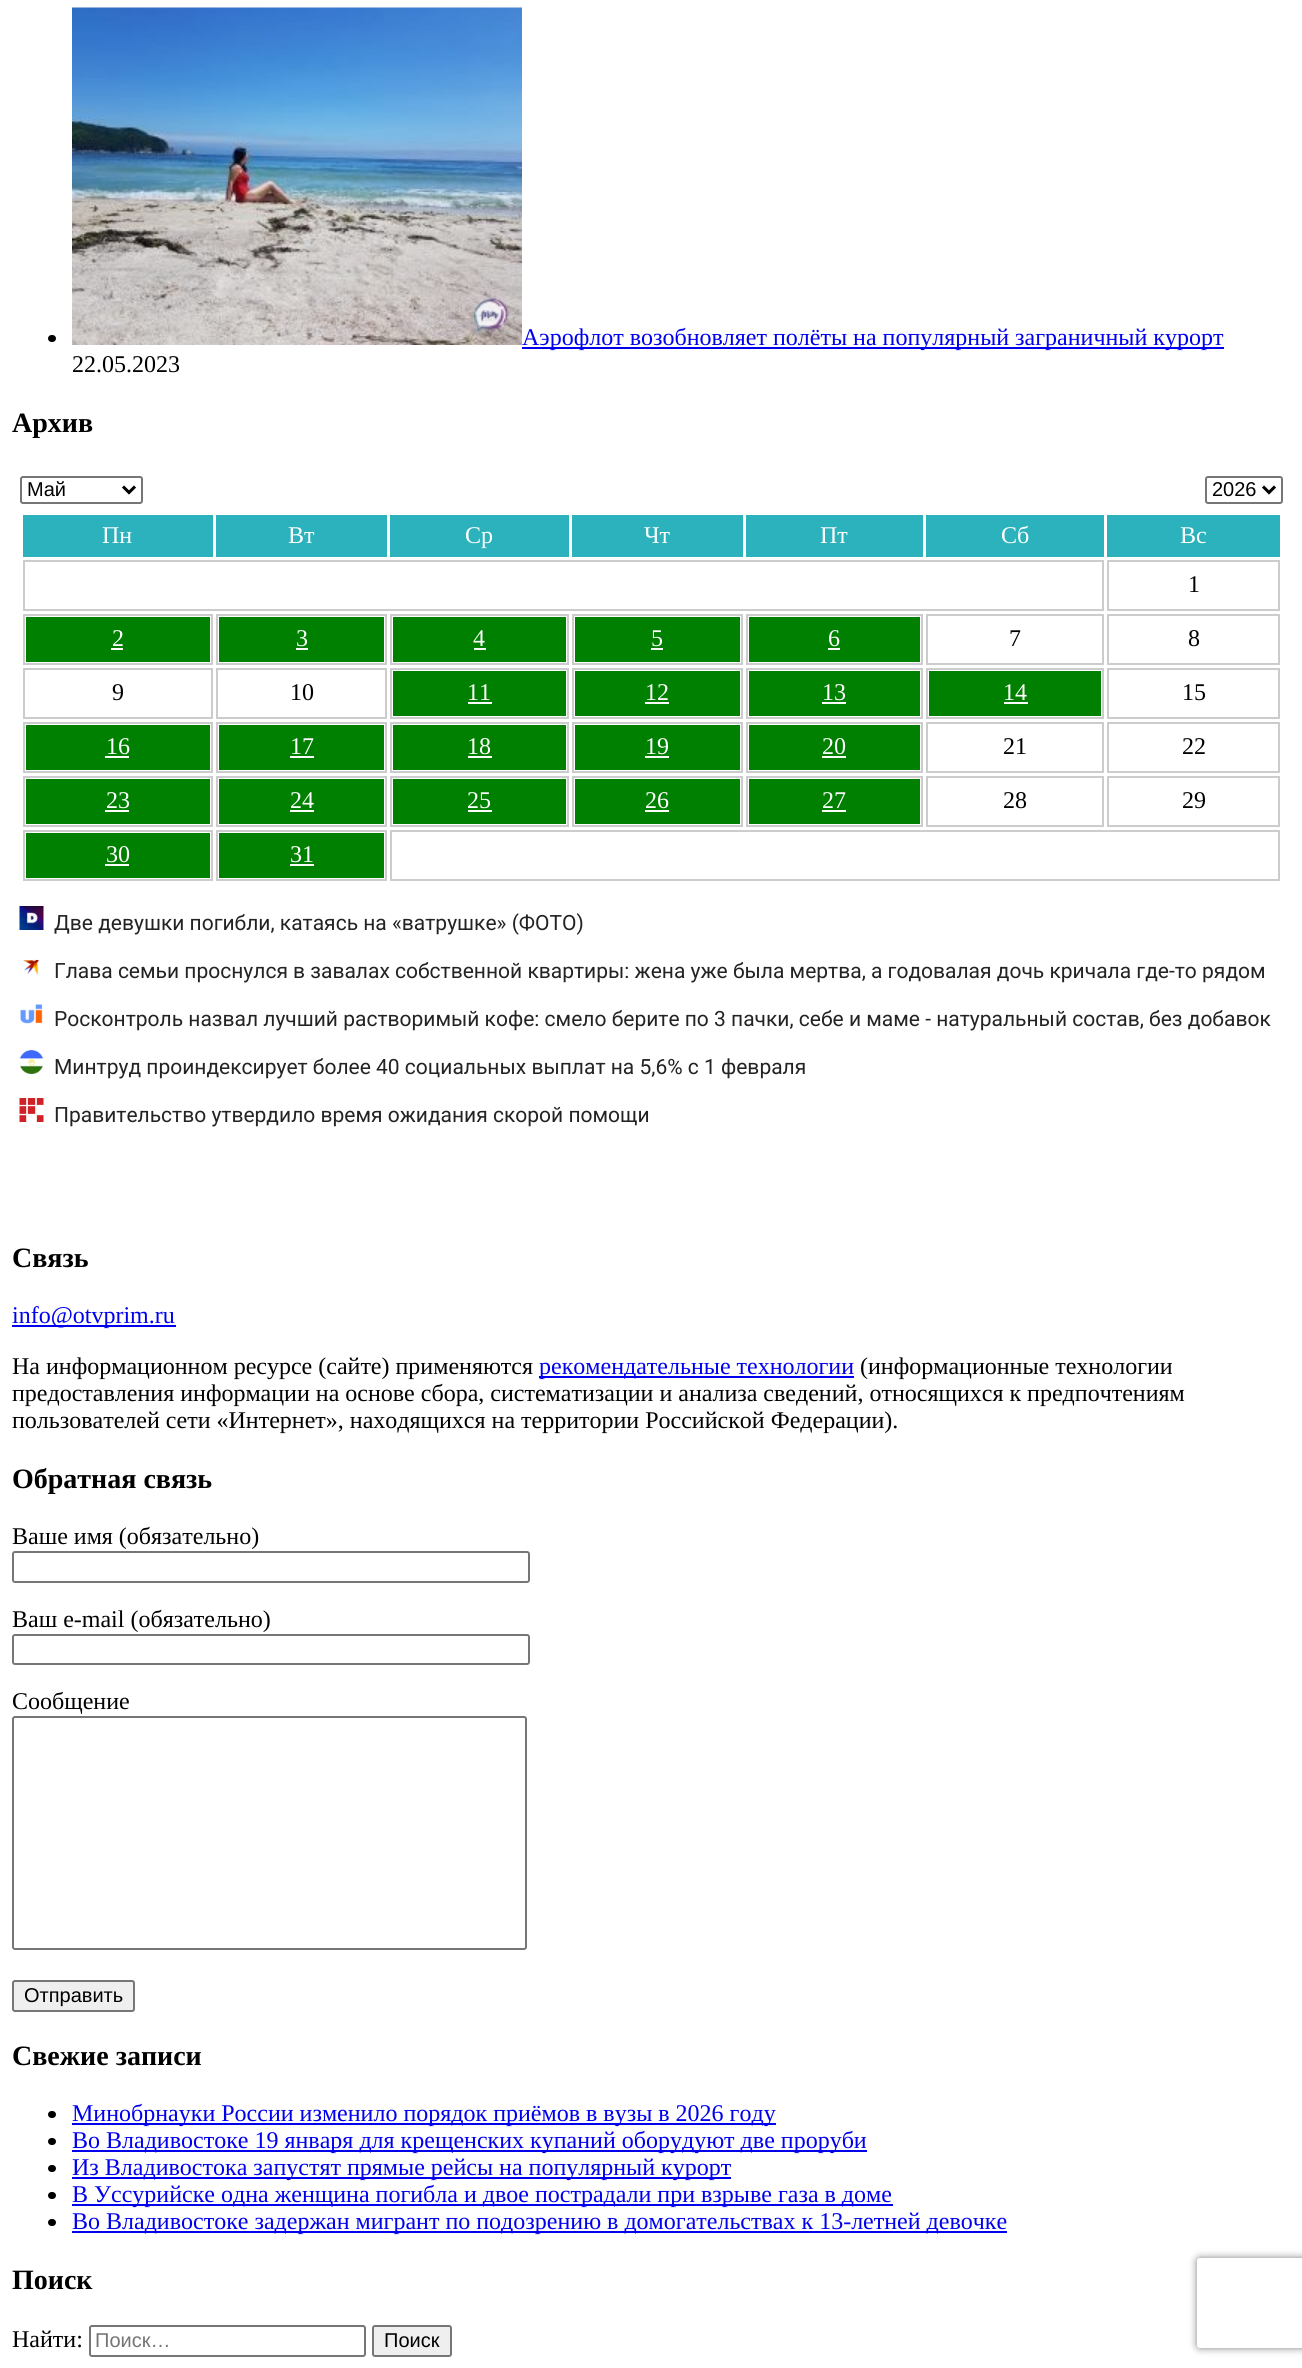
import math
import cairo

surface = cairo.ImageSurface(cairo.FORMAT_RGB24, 1302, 2368)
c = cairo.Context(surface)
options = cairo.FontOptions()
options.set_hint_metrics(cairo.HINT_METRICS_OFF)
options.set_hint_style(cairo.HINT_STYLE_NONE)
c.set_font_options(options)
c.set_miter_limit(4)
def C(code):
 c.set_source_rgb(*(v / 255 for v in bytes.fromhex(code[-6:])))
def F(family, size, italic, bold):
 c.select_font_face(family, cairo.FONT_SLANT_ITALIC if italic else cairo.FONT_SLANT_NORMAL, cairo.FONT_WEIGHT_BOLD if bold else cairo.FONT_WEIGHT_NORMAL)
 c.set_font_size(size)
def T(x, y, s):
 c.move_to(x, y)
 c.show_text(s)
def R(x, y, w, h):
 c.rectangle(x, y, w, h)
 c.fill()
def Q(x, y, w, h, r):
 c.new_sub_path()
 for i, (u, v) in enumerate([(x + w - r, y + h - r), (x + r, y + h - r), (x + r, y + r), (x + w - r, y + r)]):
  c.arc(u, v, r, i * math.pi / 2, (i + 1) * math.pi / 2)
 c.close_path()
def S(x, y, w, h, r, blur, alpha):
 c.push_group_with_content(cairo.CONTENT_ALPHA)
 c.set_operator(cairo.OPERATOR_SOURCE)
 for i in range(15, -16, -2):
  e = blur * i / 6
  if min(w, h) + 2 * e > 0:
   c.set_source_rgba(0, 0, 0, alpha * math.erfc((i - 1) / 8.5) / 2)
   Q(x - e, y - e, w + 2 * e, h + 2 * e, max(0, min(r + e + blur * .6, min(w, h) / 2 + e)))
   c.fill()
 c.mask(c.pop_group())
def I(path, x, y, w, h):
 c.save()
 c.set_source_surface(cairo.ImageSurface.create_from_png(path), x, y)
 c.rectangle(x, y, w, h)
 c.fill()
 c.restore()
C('ffffff')
c.paint()
C('000000')
Q(48,335,8,7,3.5)
c.fill()
I('1.png',72,7,450,338)
C('0000ee')
R(522,347,702,2)
F('Liberation Serif',24,0,0)
T(522,345,'Аэрофлот возобновляет полёты на популярный заграничный курорт')
C('000000')
T(72,372,'22.05.2023')
F('Liberation Serif',28,0,1)
T(12,432,'Архив')
Q(21,477,121,26,2)
C('767676')
c.stroke()
c.new_path()
c.move_to(123,486.5)
c.line_to(129,492.5)
c.line_to(135,486.5)
C('000000')
c.set_line_width(3)
c.stroke()
F('Liberation Sans',20,0,0)
T(27,496,'Май')
Q(1206,477,76,26,2)
C('767676')
c.set_line_width(2)
c.stroke()
c.new_path()
c.move_to(1263,486.5)
c.line_to(1269,492.5)
c.line_to(1275,486.5)
C('000000')
c.set_line_width(3)
c.stroke()
T(1212,496,'2026')
C('2cb2bc')
R(23,515,190,42)
F('Liberation Serif',24,0,0)
C('ffffff')
T(102,543,'Пн')
C('2cb2bc')
R(216,515,171,42)
C('ffffff')
T(288,543,'Вт')
C('2cb2bc')
R(390,515,179,42)
C('ffffff')
T(465,543,'Ср')
C('2cb2bc')
R(572,515,171,42)
C('ffffff')
T(644,543,'Чт')
C('2cb2bc')
R(746,515,177,42)
C('ffffff')
T(820,543,'Пт')
C('2cb2bc')
R(926,515,178,42)
C('ffffff')
T(1001,543,'Сб')
C('2cb2bc')
R(1107,515,173,42)
C('ffffff')
T(1180,543,'Вс')
c.rectangle(24,561,1079,49)
C('cccccc')
c.set_line_width(2)
c.stroke()
c.rectangle(1108,561,171,49)
c.stroke()
C('000000')
T(1188,592,'1')
c.rectangle(24,615,188,49)
C('cccccc')
c.stroke()
C('008000')
R(26,617,184,45)
C('ffffff')
T(112,646,'2')
R(111,648,12,2)
c.rectangle(217,615,169,49)
C('cccccc')
c.stroke()
C('008000')
R(219,617,165,45)
C('ffffff')
T(296,646,'3')
R(296,648,12,2)
c.rectangle(391,615,177,49)
C('cccccc')
c.stroke()
C('008000')
R(393,617,173,45)
C('ffffff')
T(473,646,'4')
R(474,648,12,2)
c.rectangle(573,615,169,49)
C('cccccc')
c.stroke()
C('008000')
R(575,617,165,45)
C('ffffff')
T(651,646,'5')
R(651,648,12,2)
c.rectangle(747,615,175,49)
C('cccccc')
c.stroke()
C('008000')
R(749,617,171,45)
C('ffffff')
T(828,646,'6')
R(828,648,12,2)
c.rectangle(927,615,176,49)
C('cccccc')
c.stroke()
C('000000')
T(1009,646,'7')
c.rectangle(1108,615,171,49)
C('cccccc')
c.stroke()
C('000000')
T(1188,646,'8')
c.rectangle(24,669,188,49)
C('cccccc')
c.stroke()
C('000000')
T(112,700,'9')
c.rectangle(217,669,169,49)
C('cccccc')
c.stroke()
C('000000')
T(290,700,'10')
c.rectangle(391,669,177,49)
C('cccccc')
c.stroke()
C('008000')
R(393,671,173,45)
C('ffffff')
T(467,700,'11')
R(468,702,24,2)
c.rectangle(573,669,169,49)
C('cccccc')
c.stroke()
C('008000')
R(575,671,165,45)
C('ffffff')
T(645,700,'12')
R(645,702,24,2)
c.rectangle(747,669,175,49)
C('cccccc')
c.stroke()
C('008000')
R(749,671,171,45)
C('ffffff')
T(822,700,'13')
R(822,702,24,2)
c.rectangle(927,669,176,49)
C('cccccc')
c.stroke()
C('008000')
R(929,671,172,45)
C('ffffff')
T(1003,700,'14')
R(1004,702,24,2)
c.rectangle(1108,669,171,49)
C('cccccc')
c.stroke()
C('000000')
T(1182,700,'15')
c.rectangle(24,723,188,49)
C('cccccc')
c.stroke()
C('008000')
R(26,725,184,45)
C('ffffff')
T(106,754,'16')
R(105,756,24,2)
c.rectangle(217,723,169,49)
C('cccccc')
c.stroke()
C('008000')
R(219,725,165,45)
C('ffffff')
T(290,754,'17')
R(290,756,24,2)
c.rectangle(391,723,177,49)
C('cccccc')
c.stroke()
C('008000')
R(393,725,173,45)
C('ffffff')
T(467,754,'18')
R(468,756,24,2)
c.rectangle(573,723,169,49)
C('cccccc')
c.stroke()
C('008000')
R(575,725,165,45)
C('ffffff')
T(645,754,'19')
R(645,756,24,2)
c.rectangle(747,723,175,49)
C('cccccc')
c.stroke()
C('008000')
R(749,725,171,45)
C('ffffff')
T(822,754,'20')
R(822,756,24,2)
c.rectangle(927,723,176,49)
C('cccccc')
c.stroke()
C('000000')
T(1003,754,'21')
c.rectangle(1108,723,171,49)
C('cccccc')
c.stroke()
C('000000')
T(1182,754,'22')
c.rectangle(24,777,188,49)
C('cccccc')
c.stroke()
C('008000')
R(26,779,184,45)
C('ffffff')
T(106,808,'23')
R(105,810,24,2)
c.rectangle(217,777,169,49)
C('cccccc')
c.stroke()
C('008000')
R(219,779,165,45)
C('ffffff')
T(290,808,'24')
R(290,810,24,2)
c.rectangle(391,777,177,49)
C('cccccc')
c.stroke()
C('008000')
R(393,779,173,45)
C('ffffff')
T(467,808,'25')
R(468,810,24,2)
c.rectangle(573,777,169,49)
C('cccccc')
c.stroke()
C('008000')
R(575,779,165,45)
C('ffffff')
T(645,808,'26')
R(645,810,24,2)
c.rectangle(747,777,175,49)
C('cccccc')
c.stroke()
C('008000')
R(749,779,171,45)
C('ffffff')
T(822,808,'27')
R(822,810,24,2)
c.rectangle(927,777,176,49)
C('cccccc')
c.stroke()
C('000000')
T(1003,808,'28')
c.rectangle(1108,777,171,49)
C('cccccc')
c.stroke()
C('000000')
T(1182,808,'29')
c.rectangle(24,831,188,49)
C('cccccc')
c.stroke()
C('008000')
R(26,833,184,45)
C('ffffff')
T(106,862,'30')
R(105,864,24,2)
c.rectangle(217,831,169,49)
C('cccccc')
c.stroke()
C('008000')
R(219,833,165,45)
C('ffffff')
T(290,862,'31')
R(290,864,24,2)
c.rectangle(391,831,888,49)
C('cccccc')
c.stroke()
I('2.png',19,906,25,24)
F('Roboto',21,0,0)
C('232323')
T(54,930,'Две девушки погибли, катаясь на «ватрушке» (ФОТО)')
I('3.png',23,959,17,16)
T(54,978,'Глава семьи проснулся в завалах собственной квартиры: жена уже была мертва, а годовалая дочь кричала где-то рядом')
I('4.png',20,1004,23,20)
T(54,1026,'Росконтроль назвал лучший растворимый кофе: смело берите по 3 пачки, себе и маме - натуральный состав, без добавок')
I('5.png',19,1050,25,24)
T(54,1074,'Минтруд проиндексирует более 40 социальных выплат на 5,6% с 1 февраля')
I('6.png',19,1098,25,24)
T(54,1122,'Правительство утвердило время ожидания скорой помощи')
F('Liberation Serif',28,0,1)
C('000000')
T(12,1267,'Связь')
C('0000ee')
R(12,1325,164,2)
F('Liberation Serif',24,0,0)
T(12,1323,'info@otvprim.ru')
C('000000')
T(12,1374,'На информационном ресурсе (сайте) применяются')
C('0000ee')
R(539,1376,315,2)
T(539,1374,'рекомендательные технологии')
C('000000')
T(860,1374,'(информационные технологии')
T(12,1401,'предоставления информации на основе сбора, систематизации и анализа сведений, относящихся к предпочтениям')
T(12,1428,'пользователей сети «Интернет», находящихся на территории Российской Федерации).')
F('Liberation Serif',28,0,1)
T(12,1488,'Обратная связь')
F('Liberation Serif',24,0,0)
T(12,1544,'Ваше имя (обязательно)')
Q(13,1552,516,30,2)
C('767676')
c.stroke()
C('000000')
T(12,1627,'Ваш e-mail (обязательно)')
Q(13,1635,516,29,2)
C('767676')
c.stroke()
C('000000')
T(12,1709,'Сообщение')
Q(13,1717,513,232,2)
C('767676')
c.stroke()
C('efefef')
Q(13,1981,121,30,2)
c.fill_preserve()
C('767676')
c.stroke()
F('Liberation Sans',20,0,0)
C('000000')
T(24,2002,'Отправить')
F('Liberation Serif',28,0,1)
T(12,2065,'Свежие записи')
Q(48,2111,8,7,3.5)
c.fill()
C('0000ee')
R(72,2123,704,2)
F('Liberation Serif',24,0,0)
T(72,2121,'Минобрнауки России изменило порядок приёмов в вузы в 2026 году')
C('000000')
Q(48,2138,8,7,3.5)
c.fill()
C('0000ee')
R(72,2150,795,2)
T(72,2148,'Во Владивостоке 19 января для крещенских купаний оборудуют две проруби')
C('000000')
Q(48,2165,8,7,3.5)
c.fill()
C('0000ee')
R(72,2177,659,2)
T(72,2175,'Из Владивостока запустят прямые рейсы на популярный курорт')
C('000000')
Q(48,2192,8,7,3.5)
c.fill()
C('0000ee')
R(72,2204,821,2)
T(72,2202,'В Уссурийске одна женщина погибла и двое пострадали при взрыве газа в доме')
C('000000')
Q(48,2219,8,7,3.5)
c.fill()
C('0000ee')
R(72,2231,935,2)
T(72,2229,'Во Владивостоке задержан мигрант по подозрению в домогательствах к 13-летней девочке')
F('Liberation Serif',28,0,1)
C('000000')
T(12,2289,'Поиск')
F('Liberation Serif',24,0,0)
T(12,2347,'Найти:')
Q(90,2326,275,30,2)
C('767676')
c.stroke()
F('Liberation Sans',20,0,0)
C('757575')
T(95,2347,'Поиск…')
C('efefef')
Q(373,2326,78,30,2)
c.fill_preserve()
C('767676')
c.stroke()
C('000000')
T(384,2347,'Поиск')
c.save()
c.set_fill_rule(cairo.FILL_RULE_EVEN_ODD)
c.new_path()
c.move_to(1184,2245)
c.line_to(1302,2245)
c.line_to(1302,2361)
c.line_to(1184,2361)
c.close_path()
c.move_to(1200,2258)
c.line_to(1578,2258)
c.curve_to(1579.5,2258,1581,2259.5,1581,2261)
c.line_to(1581,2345)
c.curve_to(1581,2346.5,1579.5,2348,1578,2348)
c.line_to(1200,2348)
c.curve_to(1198.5,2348,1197,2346.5,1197,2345)
c.line_to(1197,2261)
c.curve_to(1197,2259.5,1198.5,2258,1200,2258)
c.close_path()
c.clip()
C('808080')
S(1197,2258,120,90,3,4,1)
c.restore()
surface.write_to_png('o.png')
